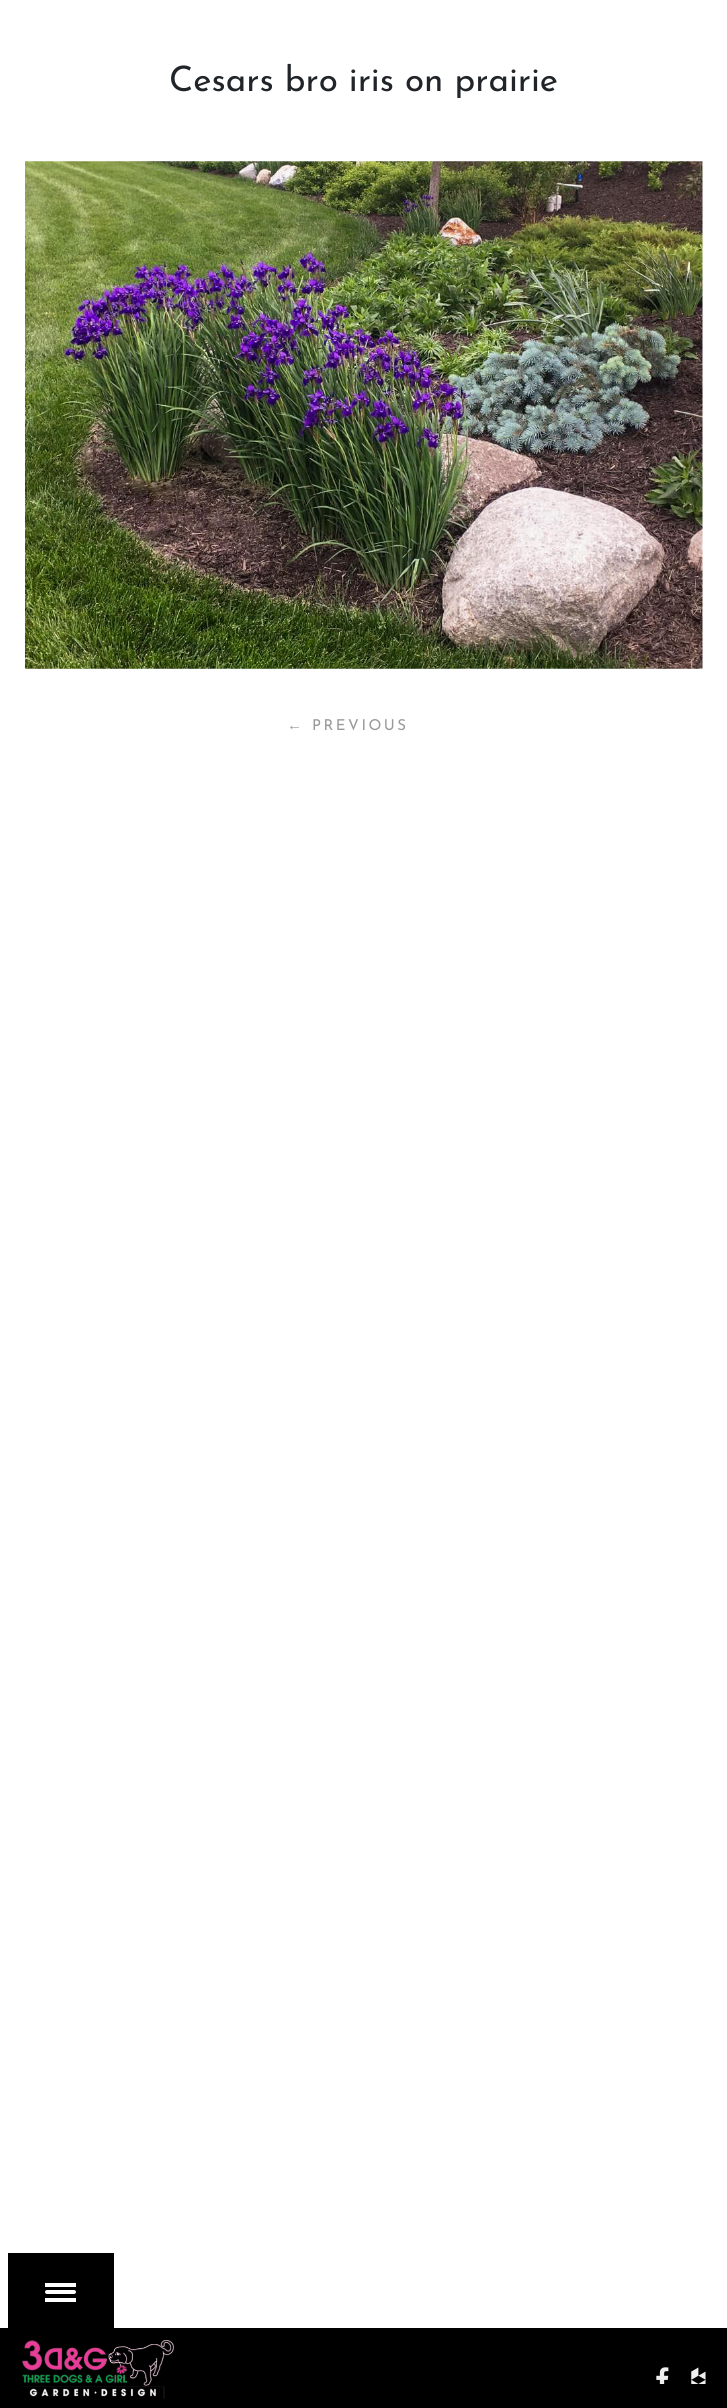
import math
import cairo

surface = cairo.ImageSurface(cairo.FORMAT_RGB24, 727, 2408)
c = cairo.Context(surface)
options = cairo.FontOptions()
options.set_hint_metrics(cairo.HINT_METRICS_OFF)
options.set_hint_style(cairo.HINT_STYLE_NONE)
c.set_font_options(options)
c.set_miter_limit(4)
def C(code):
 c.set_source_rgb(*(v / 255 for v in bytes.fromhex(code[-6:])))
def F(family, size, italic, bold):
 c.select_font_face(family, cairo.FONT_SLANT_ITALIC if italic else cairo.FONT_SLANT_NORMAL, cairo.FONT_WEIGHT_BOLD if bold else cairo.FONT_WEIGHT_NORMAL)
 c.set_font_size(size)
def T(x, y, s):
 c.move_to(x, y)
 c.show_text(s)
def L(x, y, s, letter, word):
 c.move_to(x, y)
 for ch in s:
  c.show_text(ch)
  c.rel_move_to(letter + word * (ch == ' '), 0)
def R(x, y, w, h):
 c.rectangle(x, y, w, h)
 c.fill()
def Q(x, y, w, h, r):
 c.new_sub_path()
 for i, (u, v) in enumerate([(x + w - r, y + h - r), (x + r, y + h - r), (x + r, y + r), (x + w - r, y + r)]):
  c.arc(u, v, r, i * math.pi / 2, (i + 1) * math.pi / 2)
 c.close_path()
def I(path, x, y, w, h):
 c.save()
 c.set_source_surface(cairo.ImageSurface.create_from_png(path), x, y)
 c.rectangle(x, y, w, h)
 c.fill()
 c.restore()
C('ffffff')
c.paint()
F('Josefin Sans',35,0,0)
C('212529')
T(169,91,'Cesars bro iris on prairie')
I('1.png',25,161,678,508)
F('Liberation Serif',15,0,0)
C('999999')
L(287,730,'←',2.5,0)
F('Josefin Sans',15,0,0)
L(312,730,'PREVIOUS',2.5,0)
C('000000')
R(0,2328,727,80)
R(8,2253,106,75)
C('ffffff')
Q(45,2290,31,4,2)
c.fill()
R(45,2283,31,4)
R(45,2298,31,4)
I('2.png',22,2340,152,59)
I('3.png',656,2367,13,17)
I('4.png',691,2367,15,17)
surface.write_to_png('o.png')
